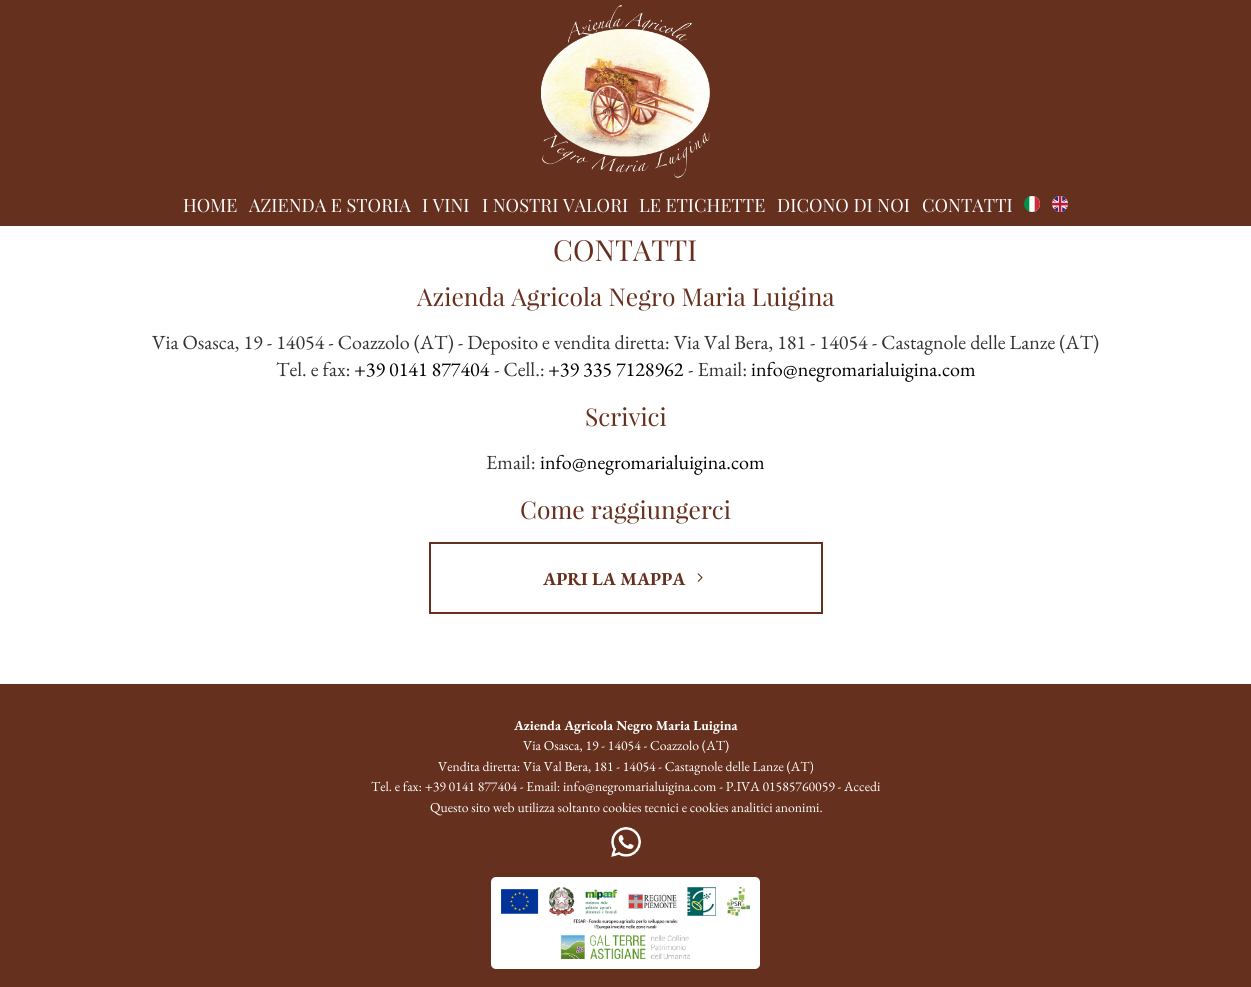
import math
import cairo

surface = cairo.ImageSurface(cairo.FORMAT_RGB24, 1251, 987)
c = cairo.Context(surface)
options = cairo.FontOptions()
options.set_hint_metrics(cairo.HINT_METRICS_OFF)
options.set_hint_style(cairo.HINT_STYLE_NONE)
c.set_font_options(options)
c.set_miter_limit(4)
def C(code):
 c.set_source_rgb(*(v / 255 for v in bytes.fromhex(code[-6:])))
def F(family, size, italic, bold):
 c.select_font_face(family, cairo.FONT_SLANT_ITALIC if italic else cairo.FONT_SLANT_NORMAL, cairo.FONT_WEIGHT_BOLD if bold else cairo.FONT_WEIGHT_NORMAL)
 c.set_font_size(size)
def T(x, y, s):
 c.move_to(x, y)
 c.show_text(s)
def R(x, y, w, h):
 c.rectangle(x, y, w, h)
 c.fill()
def Q(x, y, w, h, r):
 c.new_sub_path()
 for i, (u, v) in enumerate([(x + w - r, y + h - r), (x + r, y + h - r), (x + r, y + r), (x + w - r, y + r)]):
  c.arc(u, v, r, i * math.pi / 2, (i + 1) * math.pi / 2)
 c.close_path()
def I(path, x, y, w, h):
 c.save()
 c.set_source_surface(cairo.ImageSurface.create_from_png(path), x, y)
 c.rectangle(x, y, w, h)
 c.fill()
 c.restore()
C('ffffff')
c.paint()
C('66301e')
R(0,0,1251,226)
I('1.png',541,5,169,173)
F('Playfair Display',18.25,0,0)
C('ffffff')
T(183,212,'HOME')
T(249,212,'AZIENDA E STORIA')
T(422,212,'I VINI')
T(482,212,'I NOSTRI VALORI')
T(639,212,'LE ETICHETTE')
T(777,212,'DICONO DI NOI')
T(922,212,'CONTATTI')
I('2.png',1024,196,16,16)
I('3.png',1052,196,16,16)
F('Playfair Display',29,0,0)
C('66301e')
T(553,261,'CONTATTI')
F('Playfair Display',24.6,0,0)
T(417,306,'Azienda Agricola Negro Maria Luigina')
F('EB Garamond',20.05,0,0)
C('333333')
T(152,349,'Via Osasca, 19 - 14054 - Coazzolo (AT) - Deposito e vendita diretta: Via Val Bera, 181 - 14054 - Castagnole delle Lanze (AT)')
T(276,376,'Tel. e fax:')
C('000000')
T(354,376,'+39 0141 877404')
C('333333')
T(494,376,'- Cell.:')
C('000000')
T(548,376,'+39 335 7128962')
C('333333')
T(688,376,'- Email:')
C('000000')
T(751,376,'info@negromarialuigina.com')
F('Playfair Display',24.6,0,0)
C('66301e')
T(585,426,'Scrivici')
F('EB Garamond',20.05,0,0)
C('333333')
T(486,469,'Email:')
C('000000')
T(540,469,'info@negromarialuigina.com')
F('Playfair Display',24.6,0,0)
C('66301e')
T(520,519,'Come raggiungerci')
c.rectangle(430,543,392,70)
c.stroke()
F('EB Garamond',18.25,0,1)
T(543,585,'APRI LA MAPPA')
I('4.png',697,573,6,9)
R(0,684,1251,303)
F('EB Garamond',13.7,0,1)
C('ffffff')
T(514,730,'Azienda Agricola Negro Maria Luigina')
F('EB Garamond',13.7,0,0)
T(523,750,'Via Osasca, 19 - 14054 - Coazzolo (AT)')
T(438,771,'Vendita diretta: Via Val Bera, 181 - 14054 - Castagnole delle Lanze (AT)')
T(371,791,'Tel. e fax: +39 0141 877404 - Email: info@negromarialuigina.com - P.IVA 01585760059 - Accedi')
T(430,812,'Questo sito web utilizza soltanto cookies tecnici e cookies analitici anonimi.')
I('5.png',611,827,30,30)
Q(491,877,269,92,5)
c.fill()
I('6.png',501,887,249,72)
surface.write_to_png('o.png')
